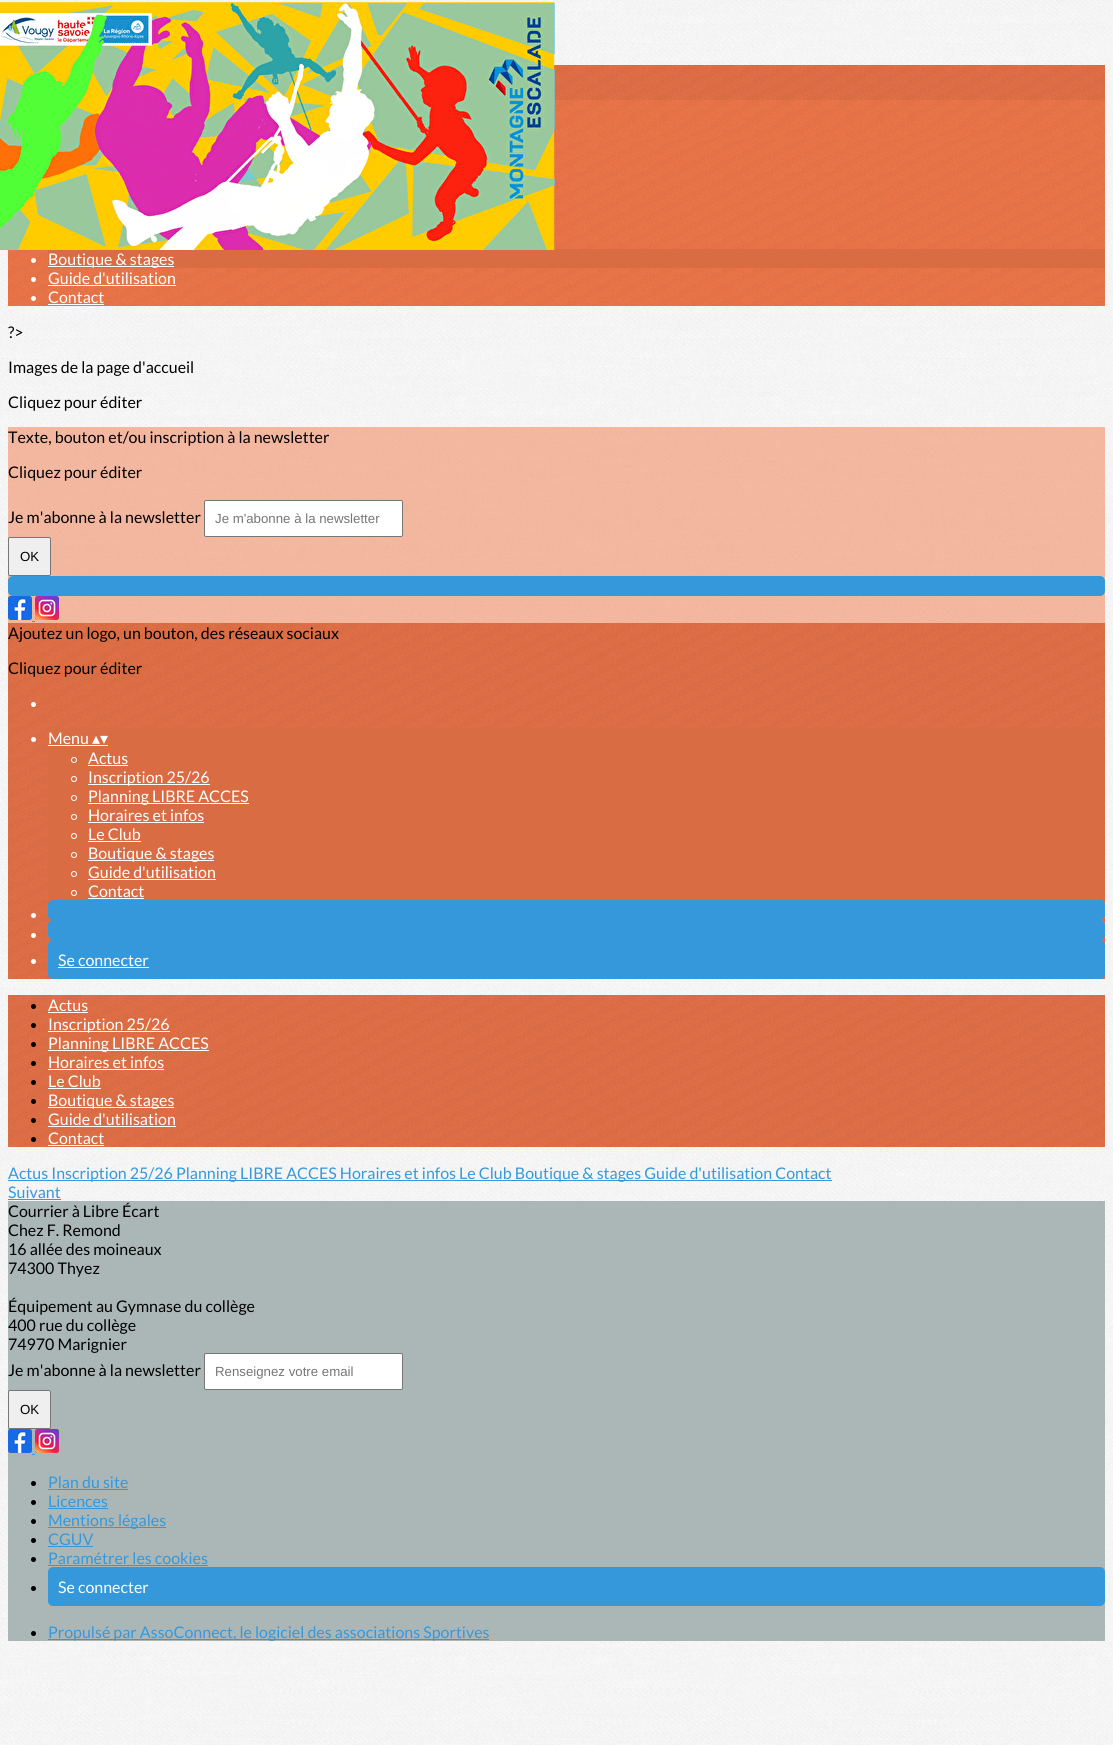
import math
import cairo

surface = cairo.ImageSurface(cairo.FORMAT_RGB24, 1113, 1745)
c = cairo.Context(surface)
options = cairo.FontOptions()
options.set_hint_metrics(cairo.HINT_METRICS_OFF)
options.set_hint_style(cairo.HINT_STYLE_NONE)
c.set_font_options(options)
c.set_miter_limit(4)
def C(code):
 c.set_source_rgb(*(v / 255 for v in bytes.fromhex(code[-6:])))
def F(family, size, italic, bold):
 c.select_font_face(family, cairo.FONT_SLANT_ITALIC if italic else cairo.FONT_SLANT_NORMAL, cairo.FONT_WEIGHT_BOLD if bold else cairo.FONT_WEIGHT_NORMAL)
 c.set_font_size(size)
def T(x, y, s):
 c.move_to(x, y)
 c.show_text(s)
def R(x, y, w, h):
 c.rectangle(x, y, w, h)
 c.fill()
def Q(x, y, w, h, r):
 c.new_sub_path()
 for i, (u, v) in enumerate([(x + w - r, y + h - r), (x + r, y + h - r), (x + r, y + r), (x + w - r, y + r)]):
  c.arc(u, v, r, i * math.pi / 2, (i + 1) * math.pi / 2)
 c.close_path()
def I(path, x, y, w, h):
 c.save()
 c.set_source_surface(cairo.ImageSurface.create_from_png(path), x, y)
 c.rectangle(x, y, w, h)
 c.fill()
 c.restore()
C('ffffff')
c.paint()
I('1.png',0,0,1113,1745)
C('f2784b')
R(554,65,551,35)
I('2.png',554,65,551,35)
C('fe7e4e')
R(8,138,1097,168)
I('3.png',8,138,1097,168)
R(554,100,551,38)
I('4.png',554,100,551,19)
I('4.png',554,119,551,19)
C('d96c43')
R(48,249,1057,19)
C('ffffff')
c.arc(33.5,260.5,2.5,0,2 * math.pi)
c.fill()
R(48,266,126,1)
F('Lato',16,0,0)
T(48,265,'Boutique & stages')
c.new_path()
c.arc(33.5,279.5,2.5,0,2 * math.pi)
c.fill()
T(48,284,'Guide d\'utilisation')
R(48,285,128,1)
c.new_path()
c.arc(33.5,298.5,2.5,0,2 * math.pi)
c.fill()
T(48,303,'Contact')
R(48,304,56,1)
C('000000')
T(8,338,'?>')
I('5.png',0,2,555,248)
T(8,373,'Images de la page d\'accueil')
T(8,408,'Cliquez pour éditer')
c.set_source_rgba(0.949,0.471,0.294,0.5)
R(8,427,1097,196)
C('000000')
T(8,443,'Texte, bouton et/ou inscription à la newsletter')
T(8,478,'Cliquez pour éditer')
T(8,523,'Je m\'abonne à la newsletter')
C('ffffff')
Q(204.5,500.5,198,36,1.5)
c.fill_preserve()
C('767676')
c.set_line_width(1)
c.stroke()
F('Liberation Sans',13.25,0,0)
C('757575')
T(215,523,'Je m\'abonne à la newsletter')
C('efefef')
Q(8.5,537.5,42,38,1.5)
c.fill_preserve()
C('767676')
c.stroke()
C('000000')
T(20,561,'OK')
C('3498db')
Q(8,576,1097,20,5)
c.fill()
I('6.png',8,596,24,24)
I('7.png',35,596,24,24)
R(32,621,3,1)
C('f2784b')
R(8,623,1097,356)
I('8.png',8,623,1097,356)
F('Lato',16,0,0)
C('000000')
T(8,639,'Ajoutez un logo, un bouton, des réseaux sociaux')
T(8,674,'Cliquez pour éditer')
C('ffffff')
c.new_path()
c.arc(33.5,704.5,2.5,0,2 * math.pi)
c.fill()
C('d96c43')
R(48,728,1057,172)
C('ffffff')
c.arc(33.5,739.5,2.5,0,2 * math.pi)
c.fill()
T(48,744,'Menu')
R(48,745,60,1)
F('DejaVu Sans',16,0,0)
T(92,744,'▴▾')
c.new_path()
c.arc(74,760,2.5,0,2 * math.pi)
c.stroke()
F('Lato',16,0,0)
T(88,764,'Actus')
R(88,765,40,1)
c.new_path()
c.arc(74,779,2.5,0,2 * math.pi)
c.stroke()
R(88,784,122,1)
T(88,783,'Inscription 25/26')
c.new_path()
c.arc(74,798,2.5,0,2 * math.pi)
c.stroke()
R(88,803,161,1)
T(88,802,'Planning LIBRE ACCES')
c.new_path()
c.arc(74,817,2.5,0,2 * math.pi)
c.stroke()
T(88,821,'Horaires et infos')
R(88,822,116,1)
c.new_path()
c.arc(74,836,2.5,0,2 * math.pi)
c.stroke()
T(88,840,'Le Club')
R(88,841,53,1)
c.new_path()
c.arc(74,855,2.5,0,2 * math.pi)
c.stroke()
R(88,860,126,1)
T(88,859,'Boutique & stages')
c.new_path()
c.arc(74,874,2.5,0,2 * math.pi)
c.stroke()
T(88,878,'Guide d\'utilisation')
R(88,879,128,1)
c.new_path()
c.arc(74,893,2.5,0,2 * math.pi)
c.stroke()
T(88,897,'Contact')
R(88,898,56,1)
c.new_path()
c.arc(33.5,915.5,2.5,0,2 * math.pi)
c.fill()
C('3498db')
Q(48,900,1057,20,5)
c.fill()
C('ffffff')
c.arc(33.5,935.5,2.5,0,2 * math.pi)
c.fill()
C('3498db')
Q(48,920,1057,20,5)
c.fill()
C('ffffff')
c.arc(33.5,961.5,2.5,0,2 * math.pi)
c.fill()
C('3498db')
Q(48,940,1057,39,5)
c.fill()
C('ffffff')
T(58,966,'Se connecter')
R(58,967,91,1)
C('f2784b')
R(8,995,1097,152)
I('9.png',8,995,1097,152)
C('000000')
c.arc(33.5,1006.5,2.5,0,2 * math.pi)
c.fill()
C('ffffff')
T(48,1011,'Actus')
R(48,1012,40,1)
C('000000')
c.new_path()
c.arc(33.5,1025.5,2.5,0,2 * math.pi)
c.fill()
C('ffffff')
R(48,1031,122,1)
T(48,1030,'Inscription 25/26')
C('000000')
c.new_path()
c.arc(33.5,1044.5,2.5,0,2 * math.pi)
c.fill()
C('ffffff')
R(48,1050,161,1)
T(48,1049,'Planning LIBRE ACCES')
C('000000')
c.new_path()
c.arc(33.5,1063.5,2.5,0,2 * math.pi)
c.fill()
C('ffffff')
T(48,1068,'Horaires et infos')
R(48,1069,116,1)
C('000000')
c.new_path()
c.arc(33.5,1082.5,2.5,0,2 * math.pi)
c.fill()
C('ffffff')
T(48,1087,'Le Club')
R(48,1088,53,1)
C('000000')
c.new_path()
c.arc(33.5,1101.5,2.5,0,2 * math.pi)
c.fill()
C('ffffff')
R(48,1107,126,1)
T(48,1106,'Boutique & stages')
C('000000')
c.new_path()
c.arc(33.5,1120.5,2.5,0,2 * math.pi)
c.fill()
C('ffffff')
T(48,1125,'Guide d\'utilisation')
R(48,1126,128,1)
C('000000')
c.new_path()
c.arc(33.5,1139.5,2.5,0,2 * math.pi)
c.fill()
C('ffffff')
T(48,1144,'Contact')
R(48,1145,56,1)
C('3498db')
R(8,1180,824,1)
T(8,1179,'Actus Inscription 25/26 Planning LIBRE ACCES Horaires et infos Le Club Boutique & stages Guide d\'utilisation Contact')
T(8,1198,'Suivant')
R(8,1199,53,1)
C('abb7b7')
R(8,1201,1097,440)
C('000000')
T(8,1217,'Courrier à Libre Écart')
T(8,1236,'Chez F. Remond')
T(8,1255,'16 allée des moineaux')
T(8,1274,'74300 Thyez')
T(8,1312,'Équipement au Gymnase du collège')
T(8,1331,'400 rue du collège')
T(8,1350,'74970 Marignier')
T(8,1376,'Je m\'abonne à la newsletter')
C('ffffff')
Q(204.5,1353.5,198,36,1.5)
c.fill_preserve()
C('767676')
c.stroke()
F('Liberation Sans',13.25,0,0)
C('757575')
T(215,1376,'Renseignez votre email')
C('efefef')
Q(8.5,1390.5,42,38,1.5)
c.fill_preserve()
C('767676')
c.stroke()
C('000000')
T(20,1414,'OK')
I('10.png',8,1429,24,24)
I('11.png',35,1429,24,24)
C('3498db')
R(32,1454,3,1)
C('000000')
c.arc(33.5,1483.5,2.5,0,2 * math.pi)
c.fill()
F('Lato',16,0,0)
C('3498db')
T(48,1488,'Plan du site')
R(48,1489,80,1)
C('000000')
c.new_path()
c.arc(33.5,1502.5,2.5,0,2 * math.pi)
c.fill()
C('3498db')
T(48,1507,'Licences')
R(48,1508,60,1)
C('000000')
c.new_path()
c.arc(33.5,1521.5,2.5,0,2 * math.pi)
c.fill()
C('3498db')
R(48,1527,118,1)
T(48,1526,'Mentions légales')
C('000000')
c.new_path()
c.arc(33.5,1540.5,2.5,0,2 * math.pi)
c.fill()
C('3498db')
T(48,1545,'CGUV')
R(48,1546,45,1)
C('000000')
c.new_path()
c.arc(33.5,1559.5,2.5,0,2 * math.pi)
c.fill()
C('3498db')
T(48,1564,'Paramétrer les cookies')
R(48,1565,160,1)
C('000000')
c.new_path()
c.arc(33.5,1588.5,2.5,0,2 * math.pi)
c.fill()
C('3498db')
Q(48,1567,1057,39,5)
c.fill()
C('ffffff')
T(58,1593,'Se connecter')
C('000000')
c.new_path()
c.arc(33.5,1633.5,2.5,0,2 * math.pi)
c.fill()
C('3498db')
R(48,1639,441,1)
T(48,1638,'Propulsé par AssoConnect, le logiciel des associations Sportives')
surface.write_to_png('o.png')
